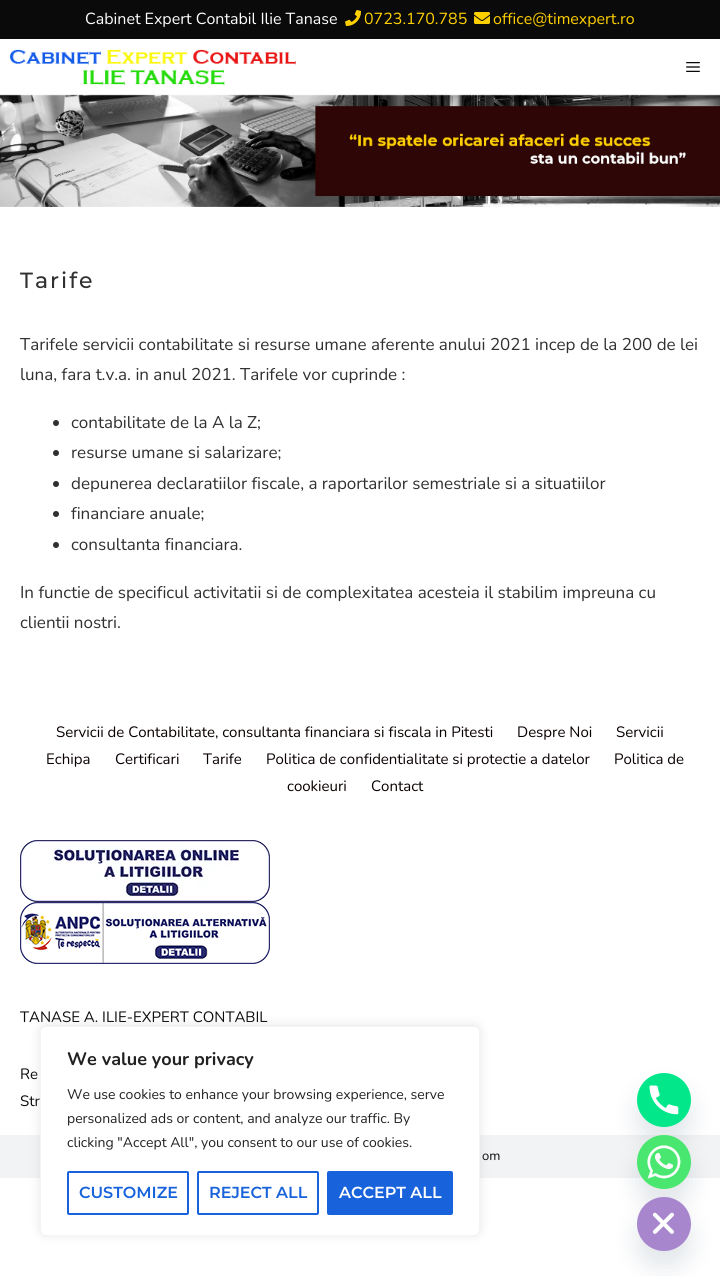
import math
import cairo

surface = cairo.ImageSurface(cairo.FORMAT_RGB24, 720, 1276)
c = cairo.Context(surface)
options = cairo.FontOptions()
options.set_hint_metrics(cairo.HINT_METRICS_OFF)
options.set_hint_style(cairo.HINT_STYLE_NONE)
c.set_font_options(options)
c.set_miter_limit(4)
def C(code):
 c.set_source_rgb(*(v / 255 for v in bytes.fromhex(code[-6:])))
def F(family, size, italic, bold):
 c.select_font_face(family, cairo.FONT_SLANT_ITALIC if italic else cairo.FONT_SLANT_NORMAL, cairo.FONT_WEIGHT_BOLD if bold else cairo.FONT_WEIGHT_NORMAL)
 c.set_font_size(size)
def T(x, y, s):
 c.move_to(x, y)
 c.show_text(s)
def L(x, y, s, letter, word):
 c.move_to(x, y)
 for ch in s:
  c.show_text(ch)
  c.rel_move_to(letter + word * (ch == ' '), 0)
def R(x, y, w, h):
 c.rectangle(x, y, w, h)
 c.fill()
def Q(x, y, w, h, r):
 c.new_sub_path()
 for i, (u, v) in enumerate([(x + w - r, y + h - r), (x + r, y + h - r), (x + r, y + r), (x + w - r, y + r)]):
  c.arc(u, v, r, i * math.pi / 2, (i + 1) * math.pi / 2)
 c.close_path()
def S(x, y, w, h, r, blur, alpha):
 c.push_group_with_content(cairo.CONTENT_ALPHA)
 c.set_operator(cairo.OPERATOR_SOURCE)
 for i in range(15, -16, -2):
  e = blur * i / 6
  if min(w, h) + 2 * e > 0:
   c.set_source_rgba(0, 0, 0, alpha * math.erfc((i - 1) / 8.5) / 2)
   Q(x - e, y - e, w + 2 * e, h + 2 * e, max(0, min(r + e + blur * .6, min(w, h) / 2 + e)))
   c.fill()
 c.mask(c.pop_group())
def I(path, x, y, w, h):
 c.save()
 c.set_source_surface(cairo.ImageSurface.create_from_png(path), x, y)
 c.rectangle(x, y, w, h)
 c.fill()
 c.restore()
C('ffffff')
c.paint()
C('0a0a0a')
R(0,0,720,39)
F('Nunito',16,0,0)
C('ffffff')
T(85,24,'Cabinet Expert Contabil Ilie Tanase')
I('1.png',345,10,16,16)
C('ffd000')
T(364,24,'0723.170.785')
I('2.png',474,12,16,12)
T(493,24,'office@timexpert.ro')
I('3.png',10,49,286,36)
I('4.png',686,62,14,10)
I('5.png',0,94,720,113)
F('Montserrat Medium',22,0,0)
C('303030')
L(20,288,'Tarife',2,0)
F('Nunito',17,0,0)
T(20,350,'Tarifele servicii contabilitate si resurse umane aferente anului 2021 incep de la 200 de lei')
T(20,380,'luna, fara t.v.a. in anul 2021. Tarifele vor cuprinde :')
c.new_path()
c.arc(56,423,3,0,2 * math.pi)
c.fill()
T(71,428,'contabilitate de la A la Z;')
c.new_path()
c.arc(56,453,3,0,2 * math.pi)
c.fill()
T(71,458,'resurse umane si salarizare;')
c.new_path()
c.arc(56,484,3,0,2 * math.pi)
c.fill()
T(71,489,'depunerea declaratiilor fiscale, a raportarilor semestriale si a situatiilor')
c.new_path()
c.arc(56,514,3,0,2 * math.pi)
c.fill()
T(71,519,'financiare anuale;')
c.new_path()
c.arc(56,545,3,0,2 * math.pi)
c.fill()
T(71,550,'consultanta financiara.')
T(20,598,'In functie de specificul activitatii si de complexitatea acesteia il stabilim impreuna cu')
T(20,628,'clientii nostri.')
F('Nunito',15,0,0)
C('0a0000')
T(56,737,'Servicii de Contabilitate, consultanta financiara si fiscala in Pitesti')
T(517,737,'Despre Noi')
T(616,737,'Servicii')
T(46,764,'Echipa')
T(115,764,'Certificari')
T(203,764,'Tarife')
T(266,764,'Politica de confidentialitate si protectie a datelor')
T(614,764,'Politica de')
T(287,791,'cookieuri')
T(371,791,'Contact')
I('6.png',20,840,250,62)
I('7.png',20,902,250,62)
C('0a0a0a')
T(20,1022,'TANASE A. ILIE-EXPERT CONTABIL')
T(20,1079,'Re')
T(20,1106,'Str')
C('f2f3f4')
R(0,1135,720,43)
F('Nunito',13,0,0)
C('0a0a0a')
T(482,1160,'om')
C('acabab')
S(40,1025,440,210,6,5,.3)
C('ffffff')
Q(40.5,1026.5,439,209,5.5)
c.fill_preserve()
C('f4f4f4')
c.set_line_width(1)
c.stroke()
F('Nunito',18,0,1)
C('212121')
T(67,1065,'We value your privacy')
F('Nunito',14,0,0)
T(67,1099,'We use cookies to enhance your browsing experience, serve')
T(67,1123,'personalized ads or content, and analyze our traffic. By')
T(67,1147,'clicking "Accept All", you consent to our use of cookies.')
Q(68,1172,120,42,1)
C('1863dc')
c.set_line_width(2)
c.stroke()
F('Montserrat SemiBold',16,0,0)
T(79,1198,'CUSTOMIZE')
Q(198,1172,120,42,1)
c.stroke()
T(209,1198,'REJECT ALL')
Q(328,1172,124,42,1)
c.fill_preserve()
c.stroke()
C('ffffff')
T(339,1198,'ACCEPT ALL')
C('49687e')
S(637,1089,54,54,27,12,.16)
I('8.png',637,1073,54,54)
S(637,1151,54,54,27,12,.16)
I('9.png',637,1135,54,54)
S(637,1213,54,54,27,12,.16)
I('10.png',637,1197,54,54)
surface.write_to_png('o.png')
